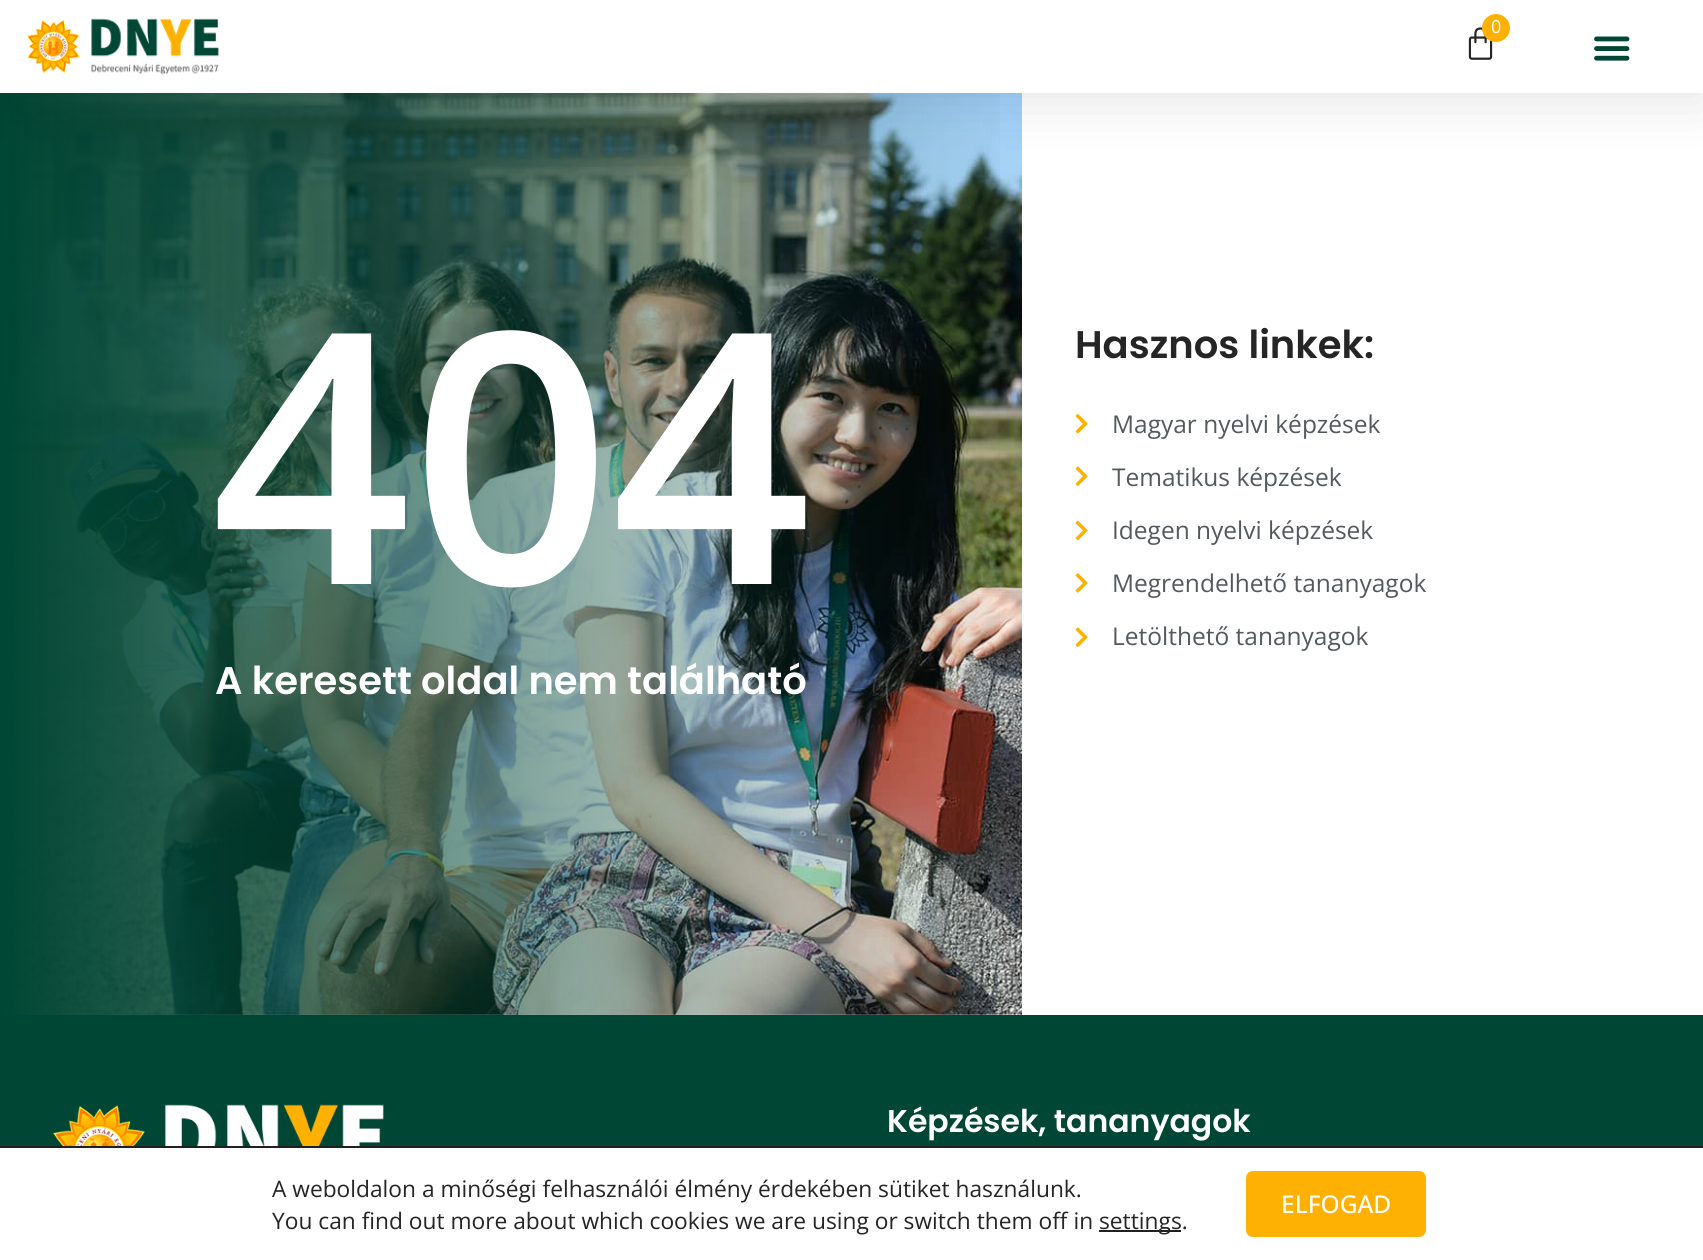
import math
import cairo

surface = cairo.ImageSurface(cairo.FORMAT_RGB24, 1703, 1260)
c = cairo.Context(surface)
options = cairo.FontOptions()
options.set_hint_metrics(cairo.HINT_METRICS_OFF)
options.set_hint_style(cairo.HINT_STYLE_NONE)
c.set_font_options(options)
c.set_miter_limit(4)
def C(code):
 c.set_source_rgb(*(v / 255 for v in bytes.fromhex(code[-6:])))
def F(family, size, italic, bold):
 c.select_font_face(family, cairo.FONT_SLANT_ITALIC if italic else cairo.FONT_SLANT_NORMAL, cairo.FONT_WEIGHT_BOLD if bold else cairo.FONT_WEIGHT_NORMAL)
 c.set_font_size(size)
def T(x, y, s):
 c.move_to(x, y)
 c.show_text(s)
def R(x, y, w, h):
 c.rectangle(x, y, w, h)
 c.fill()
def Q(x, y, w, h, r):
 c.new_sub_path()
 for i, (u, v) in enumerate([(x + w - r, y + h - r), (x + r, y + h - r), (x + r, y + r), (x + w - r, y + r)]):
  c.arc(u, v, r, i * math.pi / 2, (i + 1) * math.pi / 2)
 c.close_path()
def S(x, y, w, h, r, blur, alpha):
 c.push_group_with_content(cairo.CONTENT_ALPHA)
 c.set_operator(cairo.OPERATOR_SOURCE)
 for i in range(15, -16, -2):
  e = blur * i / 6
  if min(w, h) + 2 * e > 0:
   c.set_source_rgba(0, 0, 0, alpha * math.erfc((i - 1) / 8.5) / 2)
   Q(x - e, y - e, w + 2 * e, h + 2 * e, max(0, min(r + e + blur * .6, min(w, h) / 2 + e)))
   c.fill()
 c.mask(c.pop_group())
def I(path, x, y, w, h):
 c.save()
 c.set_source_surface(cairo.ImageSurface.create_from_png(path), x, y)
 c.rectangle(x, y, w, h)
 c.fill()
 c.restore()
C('ffffff')
c.paint()
I('4.png',6,93,1016,922)
gradient = cairo.LinearGradient(0,490,1022,490)
gradient.add_color_stop_rgba(0,0,0.275,0.204,1)
gradient.add_color_stop_rgba(1,0,0.275,0.204,0)
c.set_source(gradient)
R(0,93,1000,922)
C('000000')
S(0,9,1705,93,0,26,.1)
C('ffffff')
R(0,0,1703,93)
I('1.png',26,18,193,57)
I('2.png',1468,27,25,33)
C('feb102')
c.arc(1496,28,14,0,2 * math.pi)
c.fill()
F('Open Sans',18,0,0)
C('ffffff')
T(1491,33,'0')
I('3.png',1594,36,36,25)
F('Open Sans SemiBold',350,0,0)
T(211,584,'404')
F('Poppins SemiBold',38.5,0,0)
T(215,694,'A keresett oldal nem található')
C('252525')
T(1075,358,'Hasznos linkek:')
I('5.png',1075,414,13,20)
F('Open Sans',24.5,0,0)
C('54595f')
T(1112,433,'Magyar nyelvi képzések')
I('6.png',1075,466,13,20)
T(1112,486,'Tematikus képzések')
I('7.png',1075,520,13,21)
T(1112,539,'Idegen nyelvi képzések')
I('8.png',1075,573,13,20)
T(1112,592,'Megrendelhető tananyagok')
I('6.png',1075,627,13,20)
T(1112,645,'Letölthető tananyagok')
C('004634')
R(0,1015,1703,131)
I('9.png',53,1104,331,42)
F('Poppins SemiBold',31.5,0,0)
C('ffffff')
T(887,1132,'Képzések, tananyagok')
C('202020')
R(0,1146,1703,2)
F('Open Sans',22.75,0,0)
C('252525')
T(272,1197,'A weboldalon a minőségi felhasználói élmény érdekében sütiket használunk.')
T(272,1229,'You can find out more about which cookies we are using or switch them off in')
C('202020')
R(1099,1230,82,2)
C('252525')
T(1099,1229,'settings.')
C('feb102')
Q(1246,1171,180,66,7)
c.fill()
F('Open Sans Medium',24.5,0,0)
C('ffffff')
T(1281,1213,'ELFOGAD')
surface.write_to_png('o.png')
